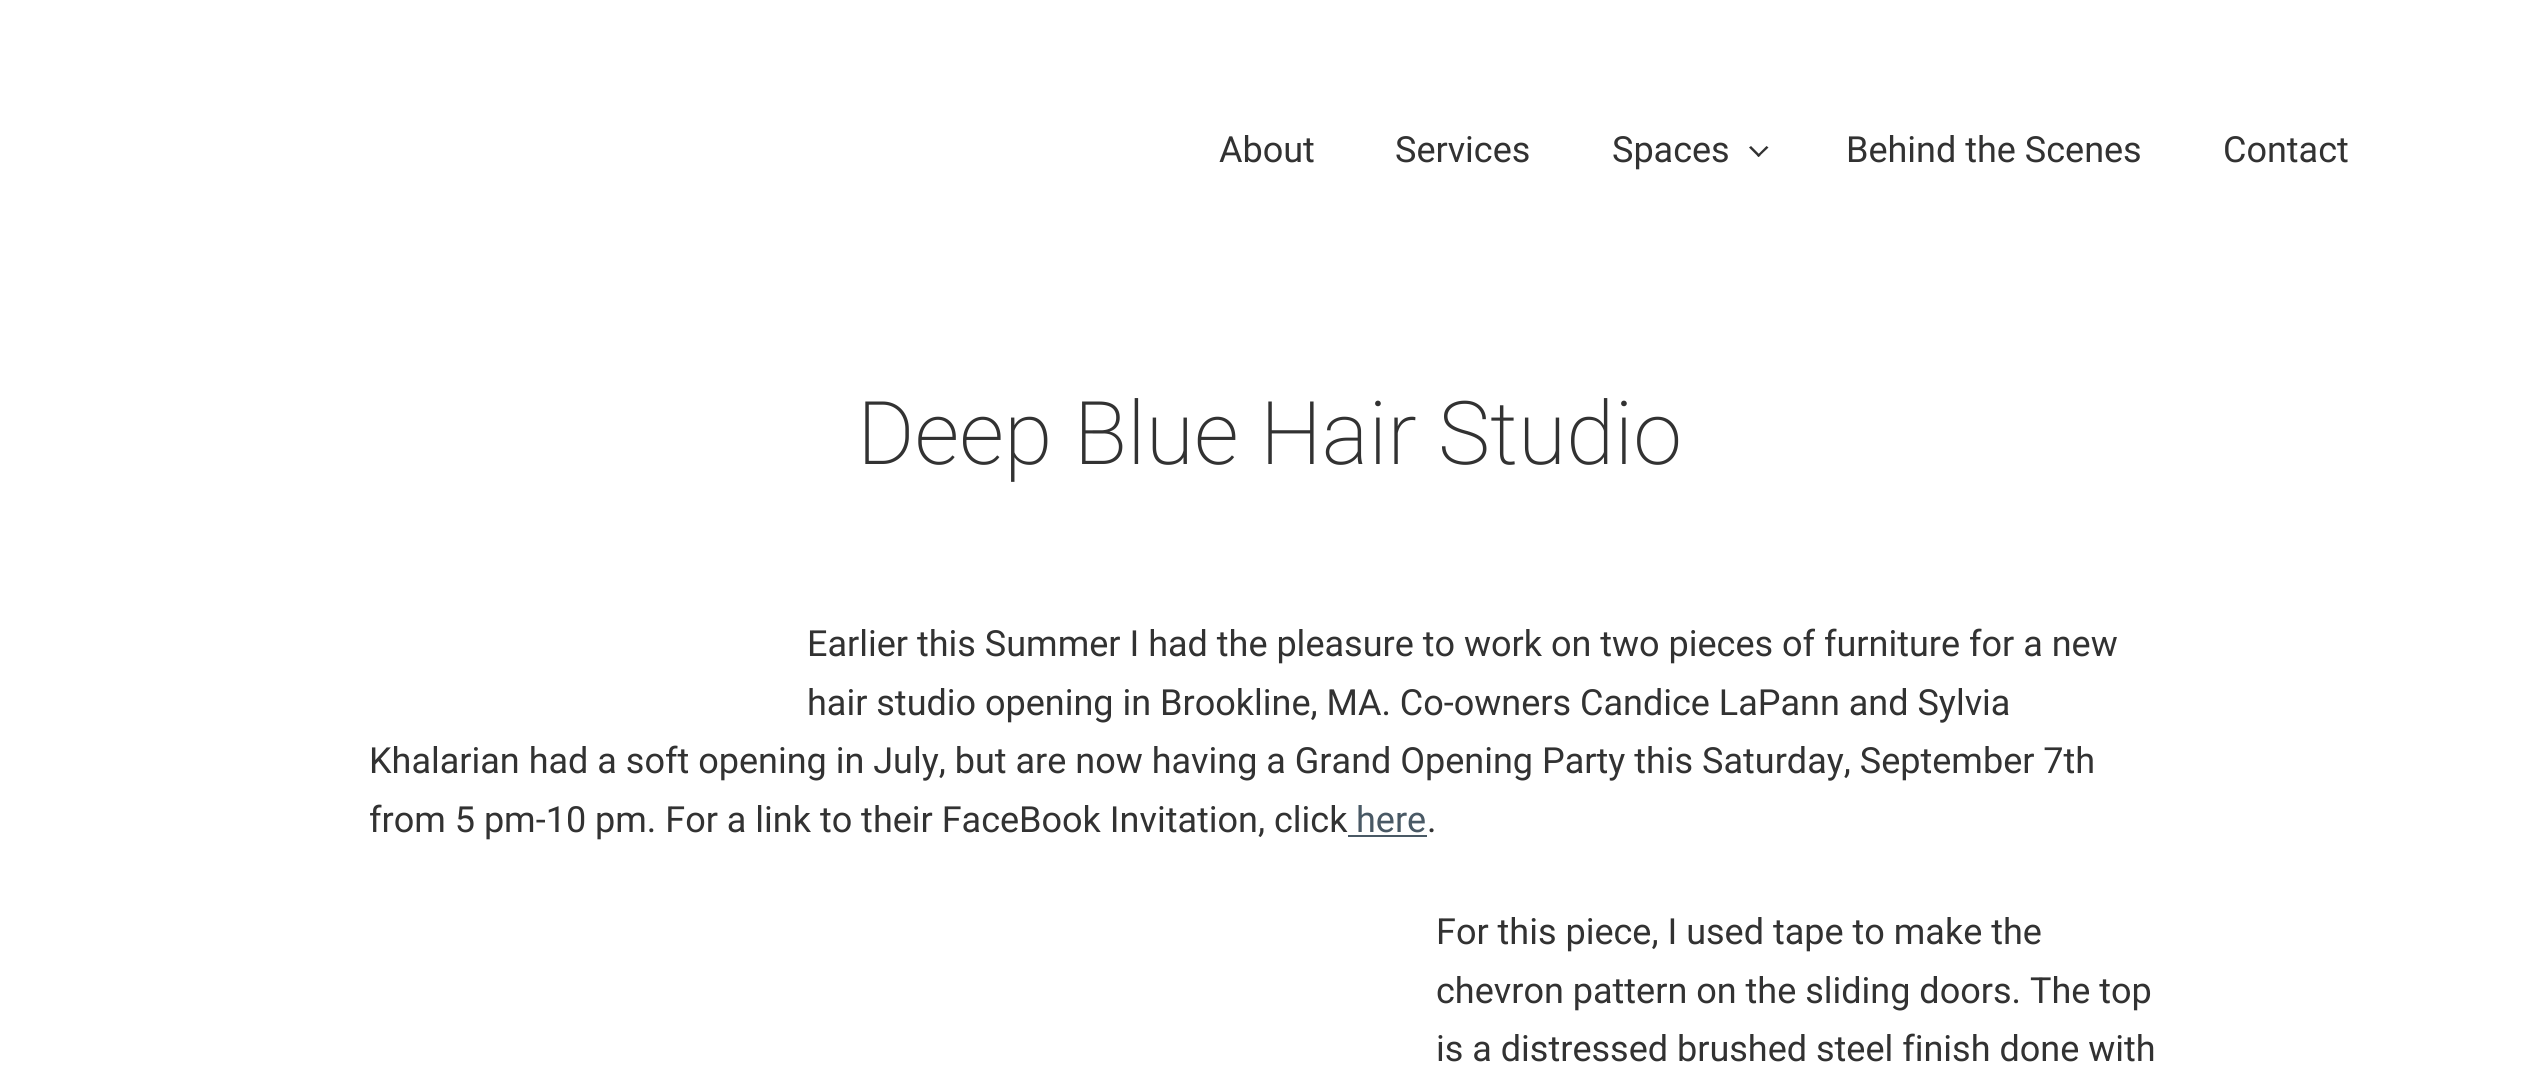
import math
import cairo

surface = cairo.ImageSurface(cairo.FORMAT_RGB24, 2537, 1080)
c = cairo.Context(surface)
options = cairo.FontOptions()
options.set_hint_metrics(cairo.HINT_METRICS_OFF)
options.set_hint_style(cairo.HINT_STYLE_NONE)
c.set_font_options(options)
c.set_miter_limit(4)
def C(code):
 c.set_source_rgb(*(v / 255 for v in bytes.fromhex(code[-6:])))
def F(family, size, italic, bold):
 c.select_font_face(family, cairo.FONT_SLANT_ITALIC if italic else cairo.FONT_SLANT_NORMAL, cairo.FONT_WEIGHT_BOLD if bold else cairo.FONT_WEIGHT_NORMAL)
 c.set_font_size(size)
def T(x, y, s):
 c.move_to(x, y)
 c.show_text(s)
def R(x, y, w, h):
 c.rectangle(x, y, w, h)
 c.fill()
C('ffffff')
c.paint()
F('Roboto',36,0,0)
C('323232')
T(1219,162,'About')
T(1395,162,'Services')
T(1612,162,'Spaces')
c.new_path()
c.move_to(1766.5,146)
c.line_to(1768.5,147.5)
c.line_to(1758.5,157)
c.line_to(1757,155.5)
c.close_path()
c.fill()
c.new_path()
c.move_to(1751,146)
c.line_to(1760.5,155.5)
c.line_to(1758.5,157)
c.line_to(1749,147.5)
c.close_path()
c.fill()
T(1846,162,'Behind the Scenes')
T(2223,162,'Contact')
F('Roboto ExtraLight',87.9,0,0)
T(857,464,'Deep Blue Hair Studio')
F('Roboto',36,0,0)
T(807,656,'Earlier this Summer I had the pleasure to work on two pieces of furniture for a new')
T(807,715,'hair studio opening in Brookline, MA. Co-owners Candice LaPann and Sylvia')
T(369,773,'Khalarian had a soft opening in July, but are now having a Grand Opening Party this Saturday, September 7th')
T(369,832,'from 5 pm-10 pm. For a link to their FaceBook Invitation, click')
C('495965')
T(1356,832,'here')
R(1348,835,79,2)
C('323232')
T(1427,832,'.')
T(1436,944,'For this piece, I used tape to make the')
T(1436,1003,'chevron pattern on the sliding doors. The top')
T(1436,1061,'is a distressed brushed steel finish done with')
surface.write_to_png('o.png')
